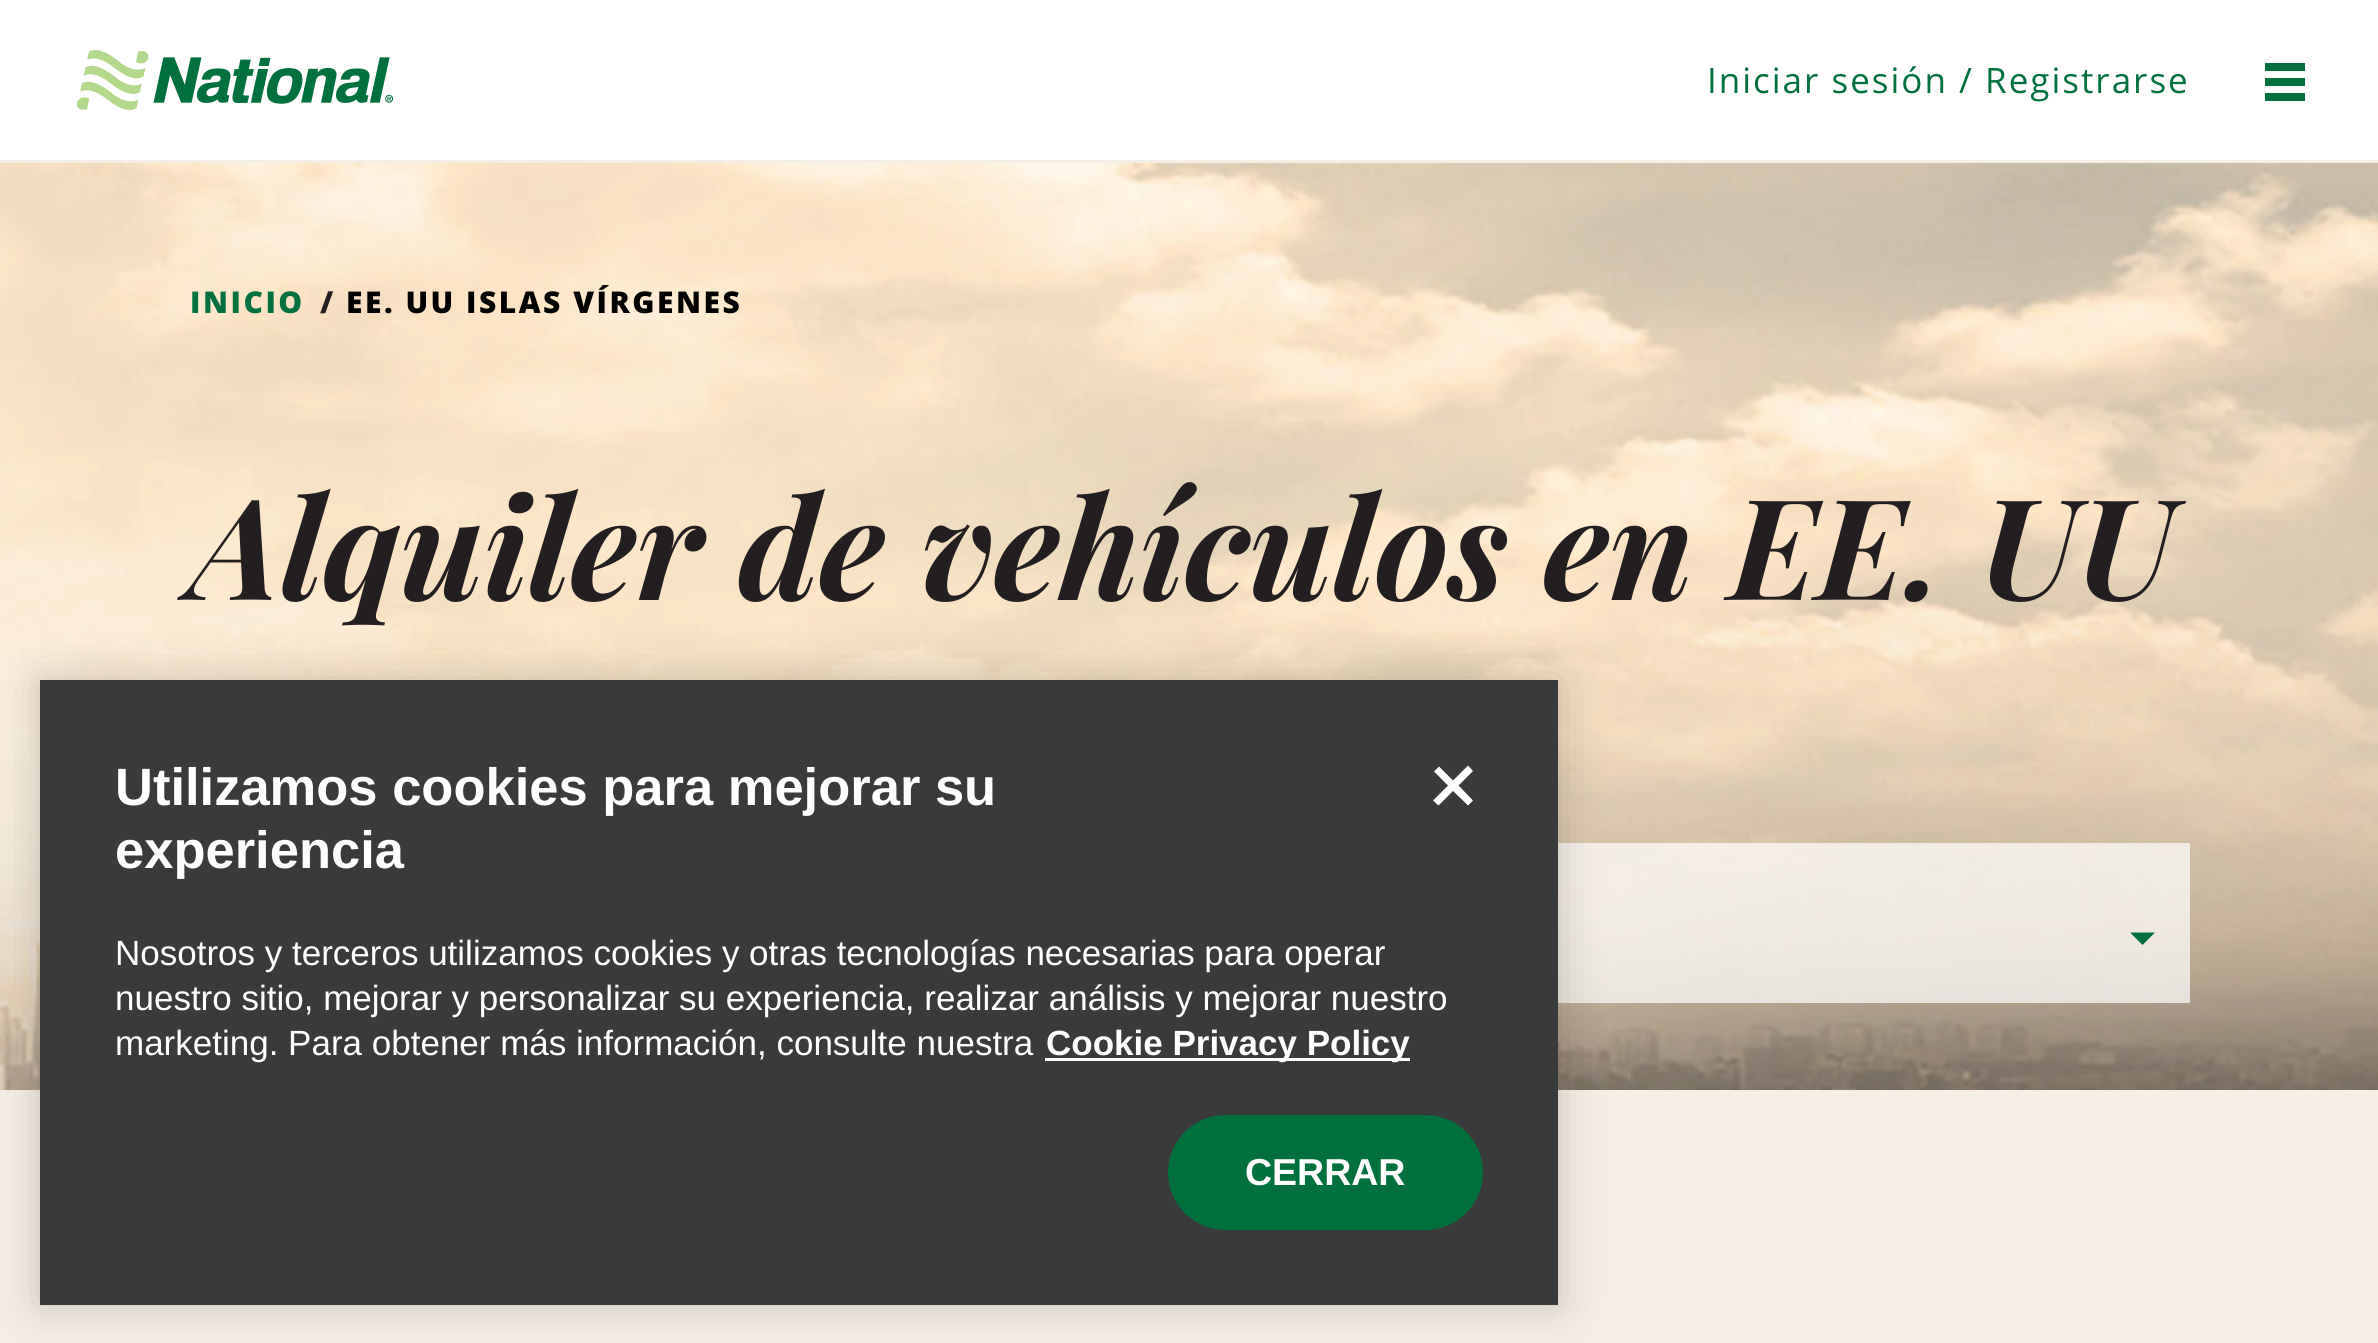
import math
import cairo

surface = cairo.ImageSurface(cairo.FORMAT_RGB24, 2378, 1343)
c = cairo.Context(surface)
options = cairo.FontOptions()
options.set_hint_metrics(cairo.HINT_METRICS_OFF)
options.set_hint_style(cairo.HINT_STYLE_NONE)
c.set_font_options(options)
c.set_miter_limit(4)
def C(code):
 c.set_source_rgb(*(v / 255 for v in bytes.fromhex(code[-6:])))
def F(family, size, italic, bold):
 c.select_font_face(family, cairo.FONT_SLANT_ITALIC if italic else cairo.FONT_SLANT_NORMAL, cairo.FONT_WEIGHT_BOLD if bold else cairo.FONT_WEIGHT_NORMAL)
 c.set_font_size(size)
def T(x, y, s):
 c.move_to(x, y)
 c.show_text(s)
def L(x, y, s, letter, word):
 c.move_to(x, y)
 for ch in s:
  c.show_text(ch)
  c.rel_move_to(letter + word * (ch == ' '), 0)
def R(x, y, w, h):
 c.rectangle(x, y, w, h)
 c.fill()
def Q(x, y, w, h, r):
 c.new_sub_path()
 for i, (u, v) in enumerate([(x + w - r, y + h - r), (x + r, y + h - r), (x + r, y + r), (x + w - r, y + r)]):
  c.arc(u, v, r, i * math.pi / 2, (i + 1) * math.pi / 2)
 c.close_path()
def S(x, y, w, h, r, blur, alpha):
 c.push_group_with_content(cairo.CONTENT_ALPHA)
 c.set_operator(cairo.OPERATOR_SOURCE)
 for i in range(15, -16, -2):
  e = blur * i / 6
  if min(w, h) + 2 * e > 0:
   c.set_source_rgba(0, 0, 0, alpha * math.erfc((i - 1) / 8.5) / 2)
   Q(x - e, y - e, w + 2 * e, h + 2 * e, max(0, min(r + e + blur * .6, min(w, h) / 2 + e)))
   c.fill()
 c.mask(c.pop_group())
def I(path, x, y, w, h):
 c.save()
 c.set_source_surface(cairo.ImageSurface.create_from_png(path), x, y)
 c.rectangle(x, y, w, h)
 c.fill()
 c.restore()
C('ffffff')
c.paint()
C('f5eee4')
R(0,160,2378,3)
I('1.png',76,50,318,60)
F('Open Sans',35,0,0)
C('00703c')
L(1707,93,'Iniciar sesión / Registrarse',2,0)
R(2265,63,40,8)
R(2265,78,40,8)
R(2265,93,40,8)
I('2.png',0,163,2378,927)
F('Open Sans ExtraBold',30,0,0)
L(190,313,'INICIO',2.5,0)
C('231f20')
L(320,313,'/',2.5,0)
C('000000')
L(346,313,'EE. UU ISLAS VÍRGENES',2.5,0)
F('Playfair Display',140,1,1)
C('231f20')
T(190,600,'Alquiler de vehículos en EE. UU')
c.set_source_rgba(1,1,1,0.7)
R(1558,843,632,160)
C('00703c')
c.new_path()
c.move_to(2130,932.5)
c.line_to(2155,932.5)
c.line_to(2142.5,945)
c.close_path()
c.fill()
C('f5eee4')
R(0,1090,2378,253)
C('000000')
S(40,680,1518,625,0,22.5,.2)
C('393a3b')
R(40,680,1518,625)
F('Liberation Sans',52.5,0,1)
C('ffffff')
T(115,805,'Utilizamos cookies para mejorar su')
T(115,868,'experiencia')
F('Liberation Sans',35,0,0)
T(115,965,'Nosotros y terceros utilizamos cookies y otras tecnologías necesarias para operar')
T(115,1010,'nuestro sitio, mejorar y personalizar su experiencia, realizar análisis y mejorar nuestro')
T(115,1055,'marketing. Para obtener más información, consulte nuestra')
R(1045,1058,365,3)
F('Liberation Sans',35,0,1)
T(1046,1055,'Cookie Privacy Policy')
c.new_path()
c.move_to(1473,771)
c.line_to(1468,765.5)
c.line_to(1453,780.5)
c.line_to(1439,766.5)
c.line_to(1434,771.5)
c.line_to(1448,785.5)
c.line_to(1433,800.5)
c.line_to(1438.5,805.5)
c.line_to(1453,791)
c.line_to(1468,805.5)
c.line_to(1473,800.5)
c.line_to(1458.5,785.5)
c.close_path()
c.fill()
C('00703c')
Q(1169.5,1116.5,312,112,56)
c.fill_preserve()
c.set_line_width(3)
c.stroke()
F('Liberation Sans',37.5,0,1)
C('ffffff')
T(1245,1185,'CERRAR')
surface.write_to_png('o.png')
